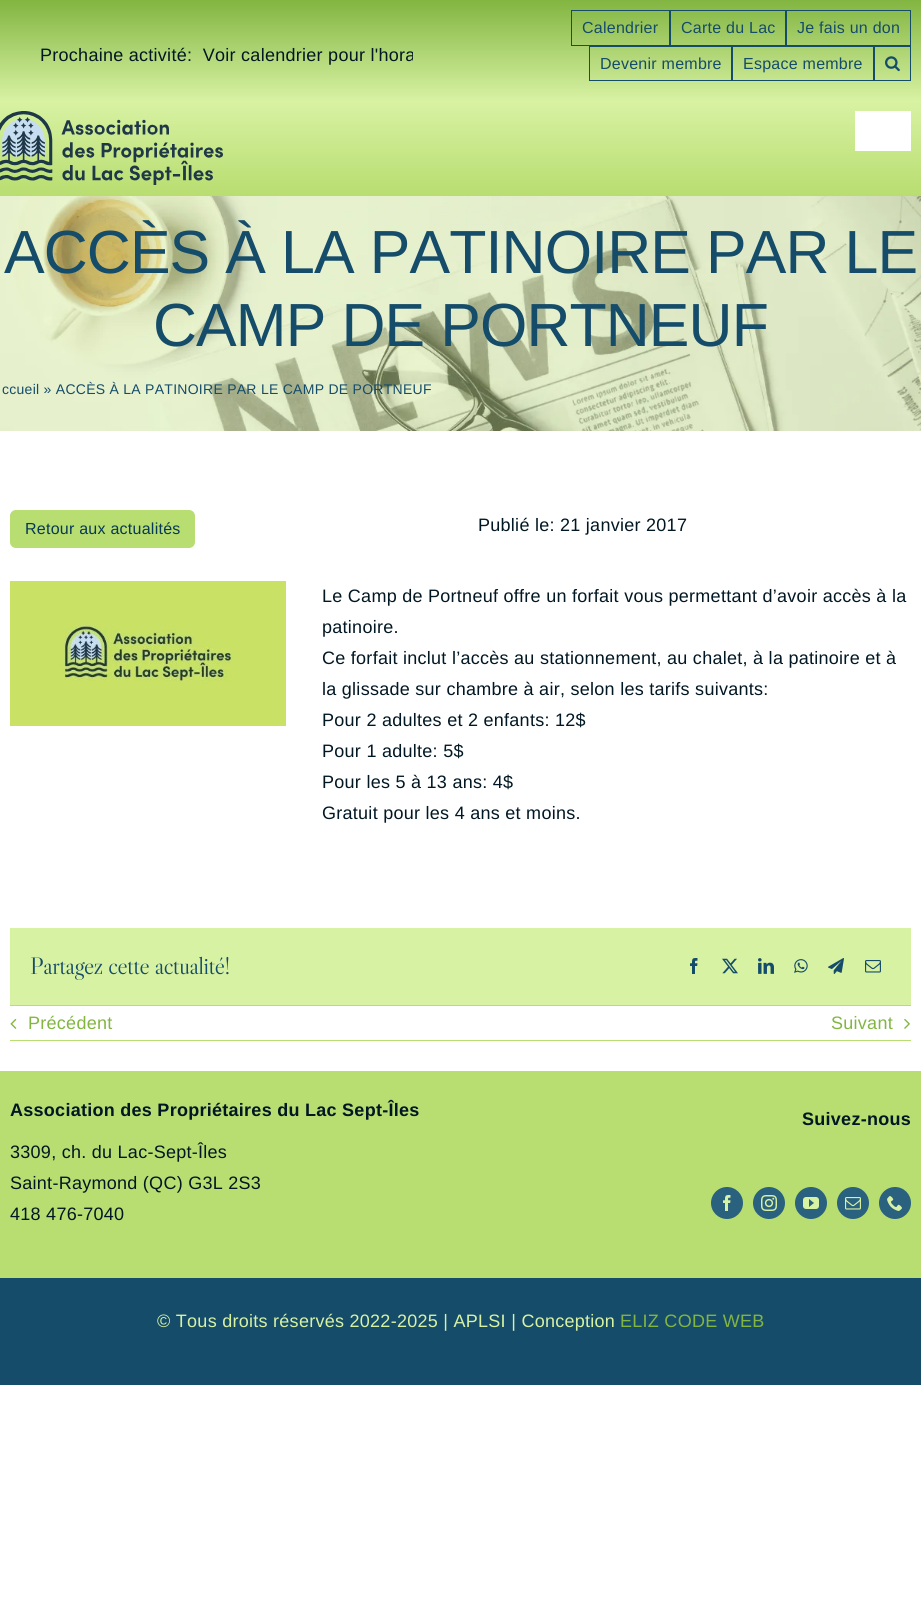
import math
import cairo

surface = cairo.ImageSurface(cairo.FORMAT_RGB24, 921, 1619)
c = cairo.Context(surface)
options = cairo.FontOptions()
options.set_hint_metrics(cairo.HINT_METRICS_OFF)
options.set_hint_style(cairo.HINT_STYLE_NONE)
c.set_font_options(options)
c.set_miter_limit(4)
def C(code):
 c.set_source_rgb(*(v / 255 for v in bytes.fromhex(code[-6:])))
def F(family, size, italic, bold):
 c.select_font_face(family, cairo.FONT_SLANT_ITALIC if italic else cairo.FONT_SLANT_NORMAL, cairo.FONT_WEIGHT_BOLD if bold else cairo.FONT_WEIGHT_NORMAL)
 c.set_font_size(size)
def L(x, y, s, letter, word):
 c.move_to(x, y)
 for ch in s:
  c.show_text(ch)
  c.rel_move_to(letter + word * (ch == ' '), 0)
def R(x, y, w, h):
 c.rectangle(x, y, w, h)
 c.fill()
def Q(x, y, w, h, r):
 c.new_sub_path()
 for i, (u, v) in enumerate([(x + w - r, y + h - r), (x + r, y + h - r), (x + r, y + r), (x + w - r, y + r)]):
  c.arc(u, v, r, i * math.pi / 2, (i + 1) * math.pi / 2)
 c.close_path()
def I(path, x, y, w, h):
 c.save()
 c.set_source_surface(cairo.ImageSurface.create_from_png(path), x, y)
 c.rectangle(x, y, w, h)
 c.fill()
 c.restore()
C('ffffff')
c.paint()
gradient = cairo.LinearGradient(461,0,461,101)
gradient.add_color_stop_rgba(0,0.51,0.71,0.255,1)
gradient.add_color_stop_rgba(1,0.847,0.949,0.639,1)
c.set_source(gradient)
R(0,0,921,101)
c.save()
c.rectangle(40,40,373,31)
c.clip()
F('Liberation Sans',18,0,0)
C('011723')
L(40,61,'Prochaine activité:  Voir calendrier pour l\'hora',.27,0)
c.restore()
c.rectangle(571.5,10.5,98,35)
C('154c6a')
c.set_line_width(1)
c.stroke()
F('Liberation Sans',16,0,0)
L(582,33,'Calendrier',.25,0)
c.rectangle(670.5,10.5,115,35)
c.stroke()
L(681,33,'Carte du Lac',.25,0)
c.rectangle(786.5,10.5,124,35)
c.stroke()
L(797,33,'Je fais un don',.25,0)
c.rectangle(589.5,46.5,142,34)
c.stroke()
L(600,69,'Devenir membre',.25,0)
c.rectangle(732.5,46.5,141,34)
c.stroke()
L(743,69,'Espace membre',.25,0)
c.rectangle(874.5,46.5,36,34)
c.stroke()
I('1.png',885,56,15,16)
gradient = cairo.LinearGradient(461,101,461,196)
gradient.add_color_stop_rgba(0,0.847,0.949,0.639,1)
gradient.add_color_stop_rgba(1,0.722,0.867,0.439,1)
c.set_source(gradient)
R(0,101,921,95)
I('2.png',0,111,223,74)
C('ffffff')
R(855,111,56,40)
I('3.png',0,196,921,235)
F('Liberation Sans',60.9,0,0)
C('154c6a')
L(4,273,'ACCÈS À LA PATINOIRE PAR LE',-.9,0)
L(153,346,'CAMP DE PORTNEUF',-.9,0)
F('Liberation Sans',14,0,0)
L(2,394,'ccueil » ACCÈS À LA PATINOIRE PAR LE CAMP DE PORTNEUF',.27,0)
C('b8dd70')
Q(10,510,185,38,6)
c.fill()
F('Liberation Sans',16,0,0)
C('063955')
L(25,534,'Retour aux actualités',.25,0)
F('Liberation Sans',18,0,0)
C('011723')
L(478,531,'Publié le: 21 janvier 2017',.27,0)
I('4.png',10,581,276,145)
L(322,602,'Le Camp de Portneuf offre un forfait vous permettant d’avoir accès à la',.27,0)
L(322,633,'patinoire.',.27,0)
L(322,664,'Ce forfait inclut l’accès au stationnement, au chalet, à la patinoire et à',.27,0)
L(322,695,'la glissade sur chambre à air, selon les tarifs suivants:',.27,0)
L(322,726,'Pour 2 adultes et 2 enfants: 12$',.27,0)
L(322,757,'Pour 1 adulte: 5$',.27,0)
L(322,788,'Pour les 5 à 13 ans: 4$',.27,0)
L(322,819,'Gratuit pour les 4 ans et moins.',.27,0)
C('d8f2a3')
R(10,928,901,77)
F('Libre Caslon Display',24,0,0)
C('154c6a')
L(30,974,'Partagez cette actualité!',-.35,0)
I('5.png',690,958,8,16)
I('6.png',722,958,16,16)
I('7.png',758,958,16,16)
I('8.png',794,959,14,14)
I('9.png',828,958,16,16)
I('10.png',865,960,16,13)
C('b8dd70')
R(10,1005,901,1)
R(10,1040,901,1)
I('11.png',10,1018,7,11)
F('Liberation Sans',18,0,0)
C('82b541')
L(28,1029,'Précédent',.27,0)
L(831,1029,'Suivant',.27,0)
I('12.png',904,1018,6,11)
C('b8dd70')
R(0,1071,921,207)
F('Liberation Sans',18,0,1)
C('011723')
L(10,1116,'Association des Propriétaires du Lac Sept-Îles',.27,0)
F('Liberation Sans',18,0,0)
L(10,1158,'3309, ch. du Lac-Sept-Îles',.27,0)
L(10,1189,'Saint-Raymond (QC) G3L 2S3',.27,0)
L(10,1220,'418 476-7040',.27,0)
F('Liberation Sans',18,0,1)
L(802,1125,'Suivez-nous',.27,0)
C('29617f')
c.new_path()
c.arc(727,1203,16,0,2 * math.pi)
c.fill()
I('13.png',723,1195,8,16)
c.arc(769,1203,16,0,2 * math.pi)
c.fill()
I('14.png',761,1195,16,16)
c.arc(811,1203,16,0,2 * math.pi)
c.fill()
I('15.png',803,1197,16,12)
c.arc(853,1203,16,0,2 * math.pi)
c.fill()
I('16.png',845,1197,16,13)
c.arc(895,1203,16,0,2 * math.pi)
c.fill()
I('17.png',887,1196,15,15)
C('154c6a')
R(0,1278,921,107)
F('Liberation Sans',18,0,0)
C('d8f2a3')
L(157,1327,'© Tous droits réservés 2022-2025 | APLSI | Conception',.27,0)
C('82b541')
L(620,1327,'ELIZ CODE WEB',.27,0)
surface.write_to_png('o.png')
